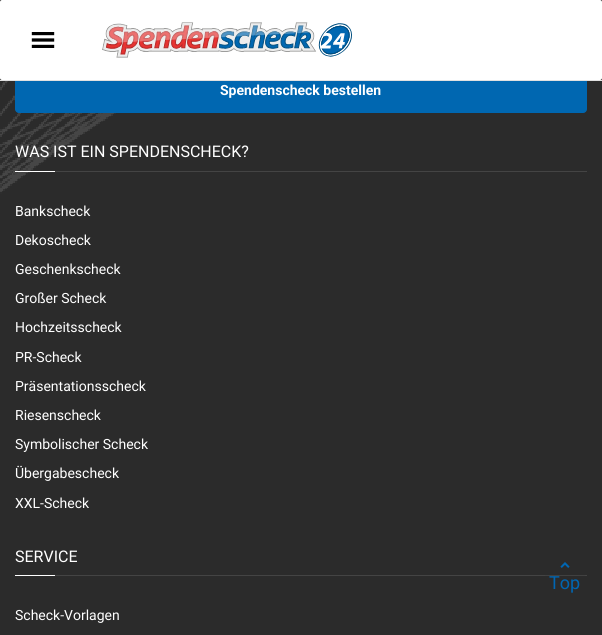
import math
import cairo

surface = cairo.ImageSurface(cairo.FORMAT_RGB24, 602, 635)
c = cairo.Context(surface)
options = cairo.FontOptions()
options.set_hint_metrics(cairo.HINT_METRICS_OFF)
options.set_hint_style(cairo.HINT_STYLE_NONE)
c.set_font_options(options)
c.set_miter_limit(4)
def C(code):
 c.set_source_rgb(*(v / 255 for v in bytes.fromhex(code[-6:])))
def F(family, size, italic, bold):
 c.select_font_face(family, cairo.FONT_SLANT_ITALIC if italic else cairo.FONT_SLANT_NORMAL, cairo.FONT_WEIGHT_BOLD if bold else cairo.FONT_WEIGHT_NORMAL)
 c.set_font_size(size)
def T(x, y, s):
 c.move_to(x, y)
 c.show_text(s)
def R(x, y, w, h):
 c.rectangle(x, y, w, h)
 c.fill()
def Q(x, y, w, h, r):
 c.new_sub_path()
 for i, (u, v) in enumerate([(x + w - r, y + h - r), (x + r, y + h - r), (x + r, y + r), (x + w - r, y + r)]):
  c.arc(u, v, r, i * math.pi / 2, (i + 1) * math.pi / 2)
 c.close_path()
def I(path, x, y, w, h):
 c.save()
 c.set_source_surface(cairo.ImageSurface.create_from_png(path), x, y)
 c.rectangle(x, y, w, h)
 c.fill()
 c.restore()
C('ffffff')
c.paint()
I('3.png',0,0,602,635)
C('0067b1')
Q(15.5,67.5,571,45,3.5)
c.fill_preserve()
c.set_line_width(1)
c.stroke()
C('e1e1e1')
R(0,80,602,1)
C('ffffff')
Q(0,0,602,80,2)
c.fill()
I('1.png',102,22,250,36)
I('2.png',31,32,24,16)
F('Roboto',14,0,1)
T(220,95,'Spendenscheck bestellen')
C('444444')
R(55,171,532,1)
F('Roboto',16,0,0)
C('ffffff')
T(15,157,'WAS IST EIN SPENDENSCHECK?')
R(15,171,40,1)
F('Roboto',14,0,0)
T(15,216,'Bankscheck')
T(15,245,'Dekoscheck')
T(15,274,'Geschenkscheck')
T(15,303,'Großer Scheck')
T(15,332,'Hochzeitsscheck')
T(15,362,'PR-Scheck')
T(15,391,'Präsentationsscheck')
T(15,420,'Riesenscheck')
T(15,449,'Symbolischer Scheck')
T(15,478,'Übergabescheck')
T(15,508,'XXL-Scheck')
C('444444')
R(55,575,532,1)
F('Roboto',16,0,0)
C('ffffff')
T(15,562,'SERVICE')
R(15,575,40,1)
F('Roboto',14,0,0)
T(15,620,'Scheck-Vorlagen')
c.set_source_rgba(0,0,0,0.05)
R(545,575,40,1)
I('4.png',560,562,10,6)
F('Roboto',18,0,0)
C('0066b3')
T(549,589,'Top')
surface.write_to_png('o.png')
